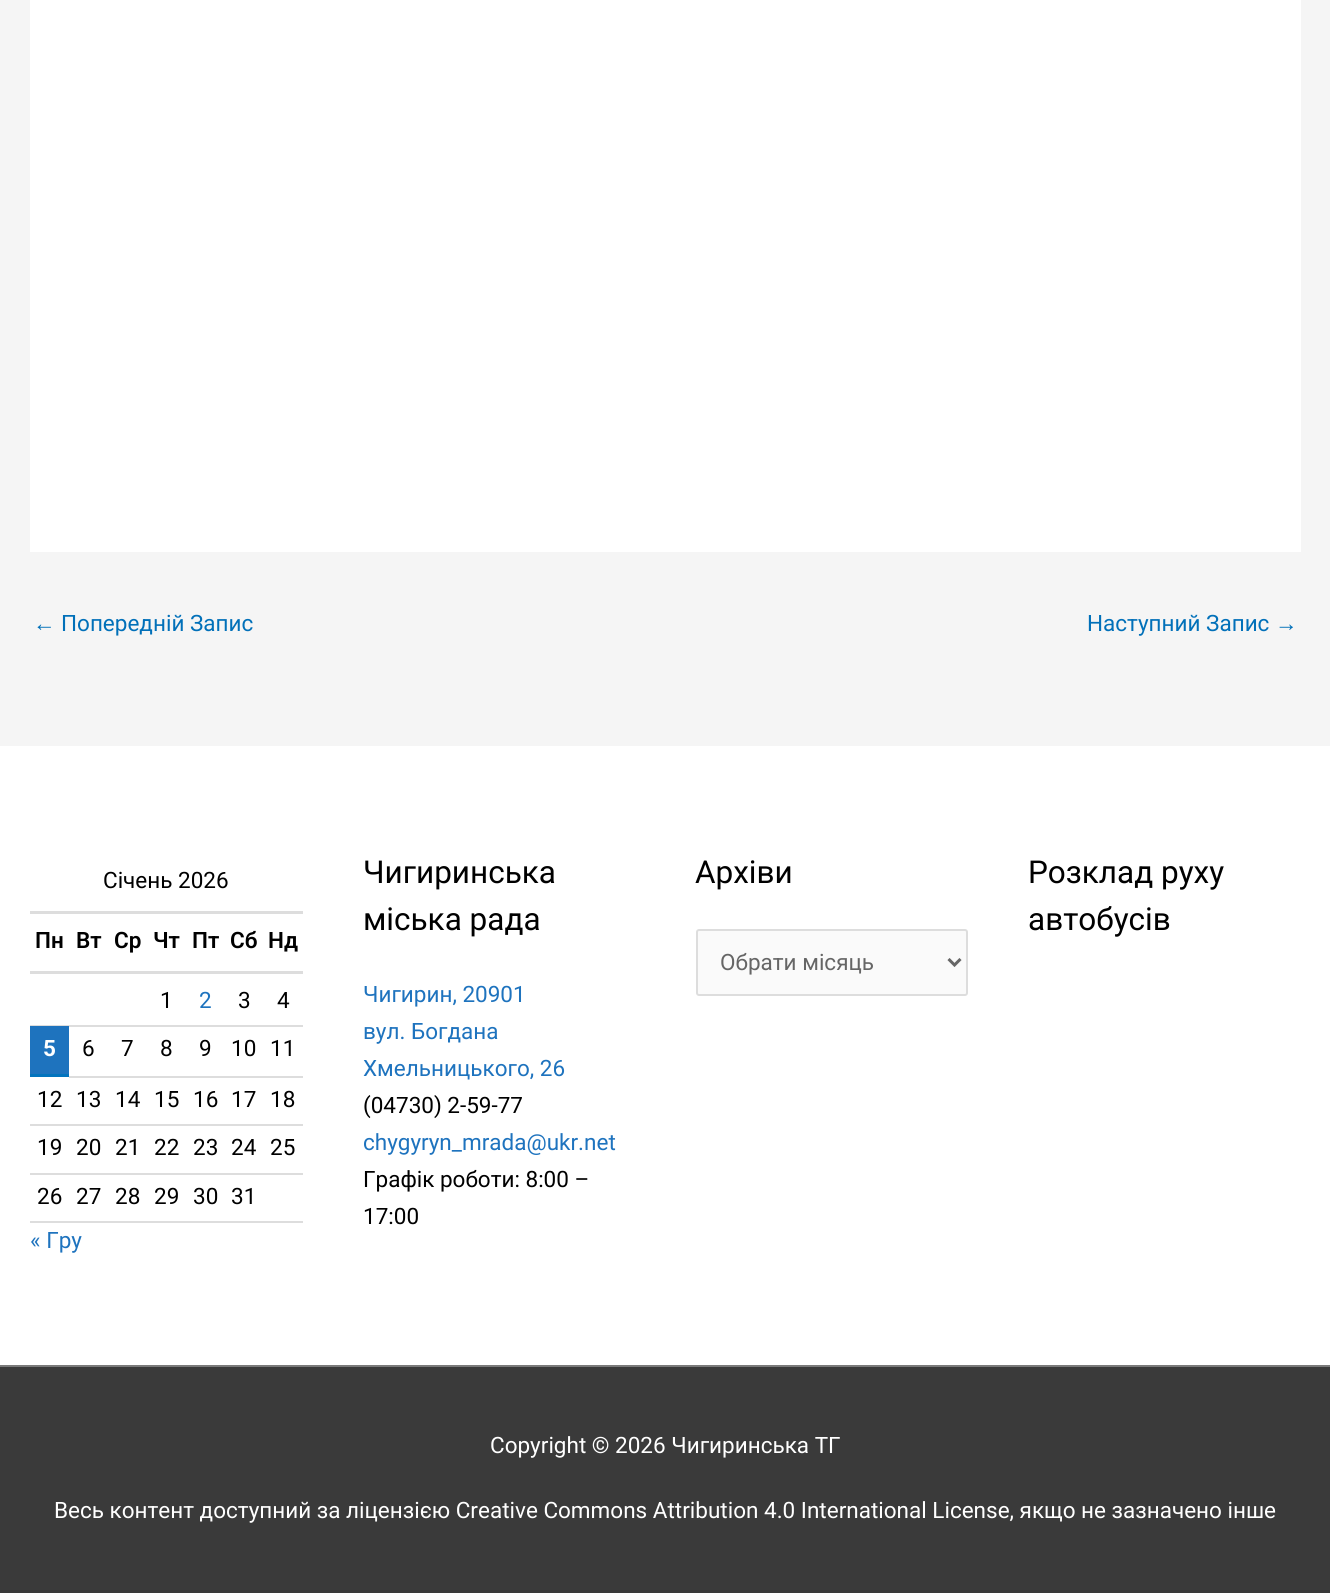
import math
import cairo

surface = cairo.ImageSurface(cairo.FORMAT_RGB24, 1330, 1593)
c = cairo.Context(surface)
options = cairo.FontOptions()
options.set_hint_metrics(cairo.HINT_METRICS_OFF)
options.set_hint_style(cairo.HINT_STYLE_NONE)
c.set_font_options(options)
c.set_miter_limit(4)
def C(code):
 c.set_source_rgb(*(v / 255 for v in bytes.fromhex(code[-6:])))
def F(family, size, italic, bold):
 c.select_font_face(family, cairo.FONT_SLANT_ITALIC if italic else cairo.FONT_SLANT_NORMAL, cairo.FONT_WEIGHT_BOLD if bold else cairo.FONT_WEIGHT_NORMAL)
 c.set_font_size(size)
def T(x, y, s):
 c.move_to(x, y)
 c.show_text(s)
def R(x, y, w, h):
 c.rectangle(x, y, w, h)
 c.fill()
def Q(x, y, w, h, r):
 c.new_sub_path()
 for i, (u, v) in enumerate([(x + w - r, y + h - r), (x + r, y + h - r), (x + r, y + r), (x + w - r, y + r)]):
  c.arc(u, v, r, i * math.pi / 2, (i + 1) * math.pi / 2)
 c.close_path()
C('f5f5f5')
c.paint()
C('ffffff')
R(30,0,1271,552)
F('Liberation Sans',22.5,0,0)
C('0170b9')
T(33,631,'←')
F('Roboto',22.5,0,0)
T(61,631,'Попередній Запис')
T(1087,631,'Наступний Запис')
F('Liberation Sans',22.5,0,0)
T(1275,631,'→')
C('ffffff')
R(0,746,1330,619)
F('Roboto',22.5,0,0)
C('000000')
T(103,888,'Січень 2026')
C('dddddd')
R(30,911,273,3)
R(30,971,273,3)
F('Roboto SemiBold',22.5,0,0)
C('000000')
T(35,948,'Пн')
T(76,948,'Вт')
T(114,948,'Ср')
T(153,948,'Чт')
T(192,948,'Пт')
T(230,948,'Сб')
T(268,948,'Нд')
F('Roboto',22.5,0,0)
T(160,1008,'1')
C('1e73be')
T(199,1008,'2')
C('000000')
T(238,1008,'3')
T(277,1008,'4')
C('dddddd')
R(30,1025,273,2)
C('1e73be')
R(30,1026,39,48)
C('0274be')
R(30,1074,39,3)
F('Roboto',22.5,0,1)
C('ffffff')
T(43,1056,'5')
C('dddddd')
R(69,1076,234,2)
F('Roboto',22.5,0,0)
C('000000')
T(82,1056,'6')
T(121,1056,'7')
T(160,1056,'8')
T(199,1056,'9')
T(231,1056,'10')
T(270,1056,'11')
C('dddddd')
R(30,1124,273,2)
C('000000')
T(37,1107,'12')
T(76,1107,'13')
T(115,1107,'14')
T(154,1107,'15')
T(193,1107,'16')
T(231,1107,'17')
T(270,1107,'18')
C('dddddd')
R(30,1173,273,2)
C('000000')
T(37,1155,'19')
T(76,1155,'20')
T(115,1155,'21')
T(154,1155,'22')
T(193,1155,'23')
T(231,1155,'24')
T(270,1155,'25')
C('dddddd')
R(30,1221,273,2)
C('000000')
T(37,1204,'26')
T(76,1204,'27')
T(115,1204,'28')
T(154,1204,'29')
T(193,1204,'30')
T(231,1204,'31')
C('1e73be')
T(30,1248,'« Гру')
F('Roboto',31.5,0,0)
C('000000')
T(363,883,'Чигиринська')
T(363,930,'міська рада')
F('Roboto',22.5,0,0)
C('1e73be')
T(363,1002,'Чигирин, 20901')
T(363,1039,'вул. Богдана')
T(363,1076,'Хмельницького, 26')
C('000000')
T(363,1113,'(04730) 2-59-77')
C('1e73be')
T(363,1150,'chygyryn_mrada@ukr.net')
C('000000')
T(363,1187,'Графік роботи: 8:00 –')
T(363,1224,'17:00')
F('Roboto',31.5,0,0)
T(695,883,'Архіви')
C('fafafa')
Q(697,930,270,65,2)
c.fill_preserve()
C('dddddd')
c.stroke()
c.new_path()
c.move_to(948.5,959)
c.line_to(954.5,965)
c.line_to(960.5,959)
C('666666')
c.set_line_width(3)
c.stroke()
F('Roboto',22.5,0,0)
T(720,970,'Обрати місяць')
F('Roboto',31.5,0,0)
C('000000')
T(1028,883,'Розклад руху')
T(1028,930,'автобусів')
C('7a7a7a')
R(0,1365,1330,2)
C('3a3a3a')
R(0,1367,1330,226)
F('Roboto',22.5,0,0)
C('ffffff')
T(490,1453,'Copyright © 2026 Чигиринська ТГ')
T(54,1518,'Весь контент доступний за ліцензією Creative Commons Attribution 4.0 International License, якщо не зазначено інше')
surface.write_to_png('o.png')
